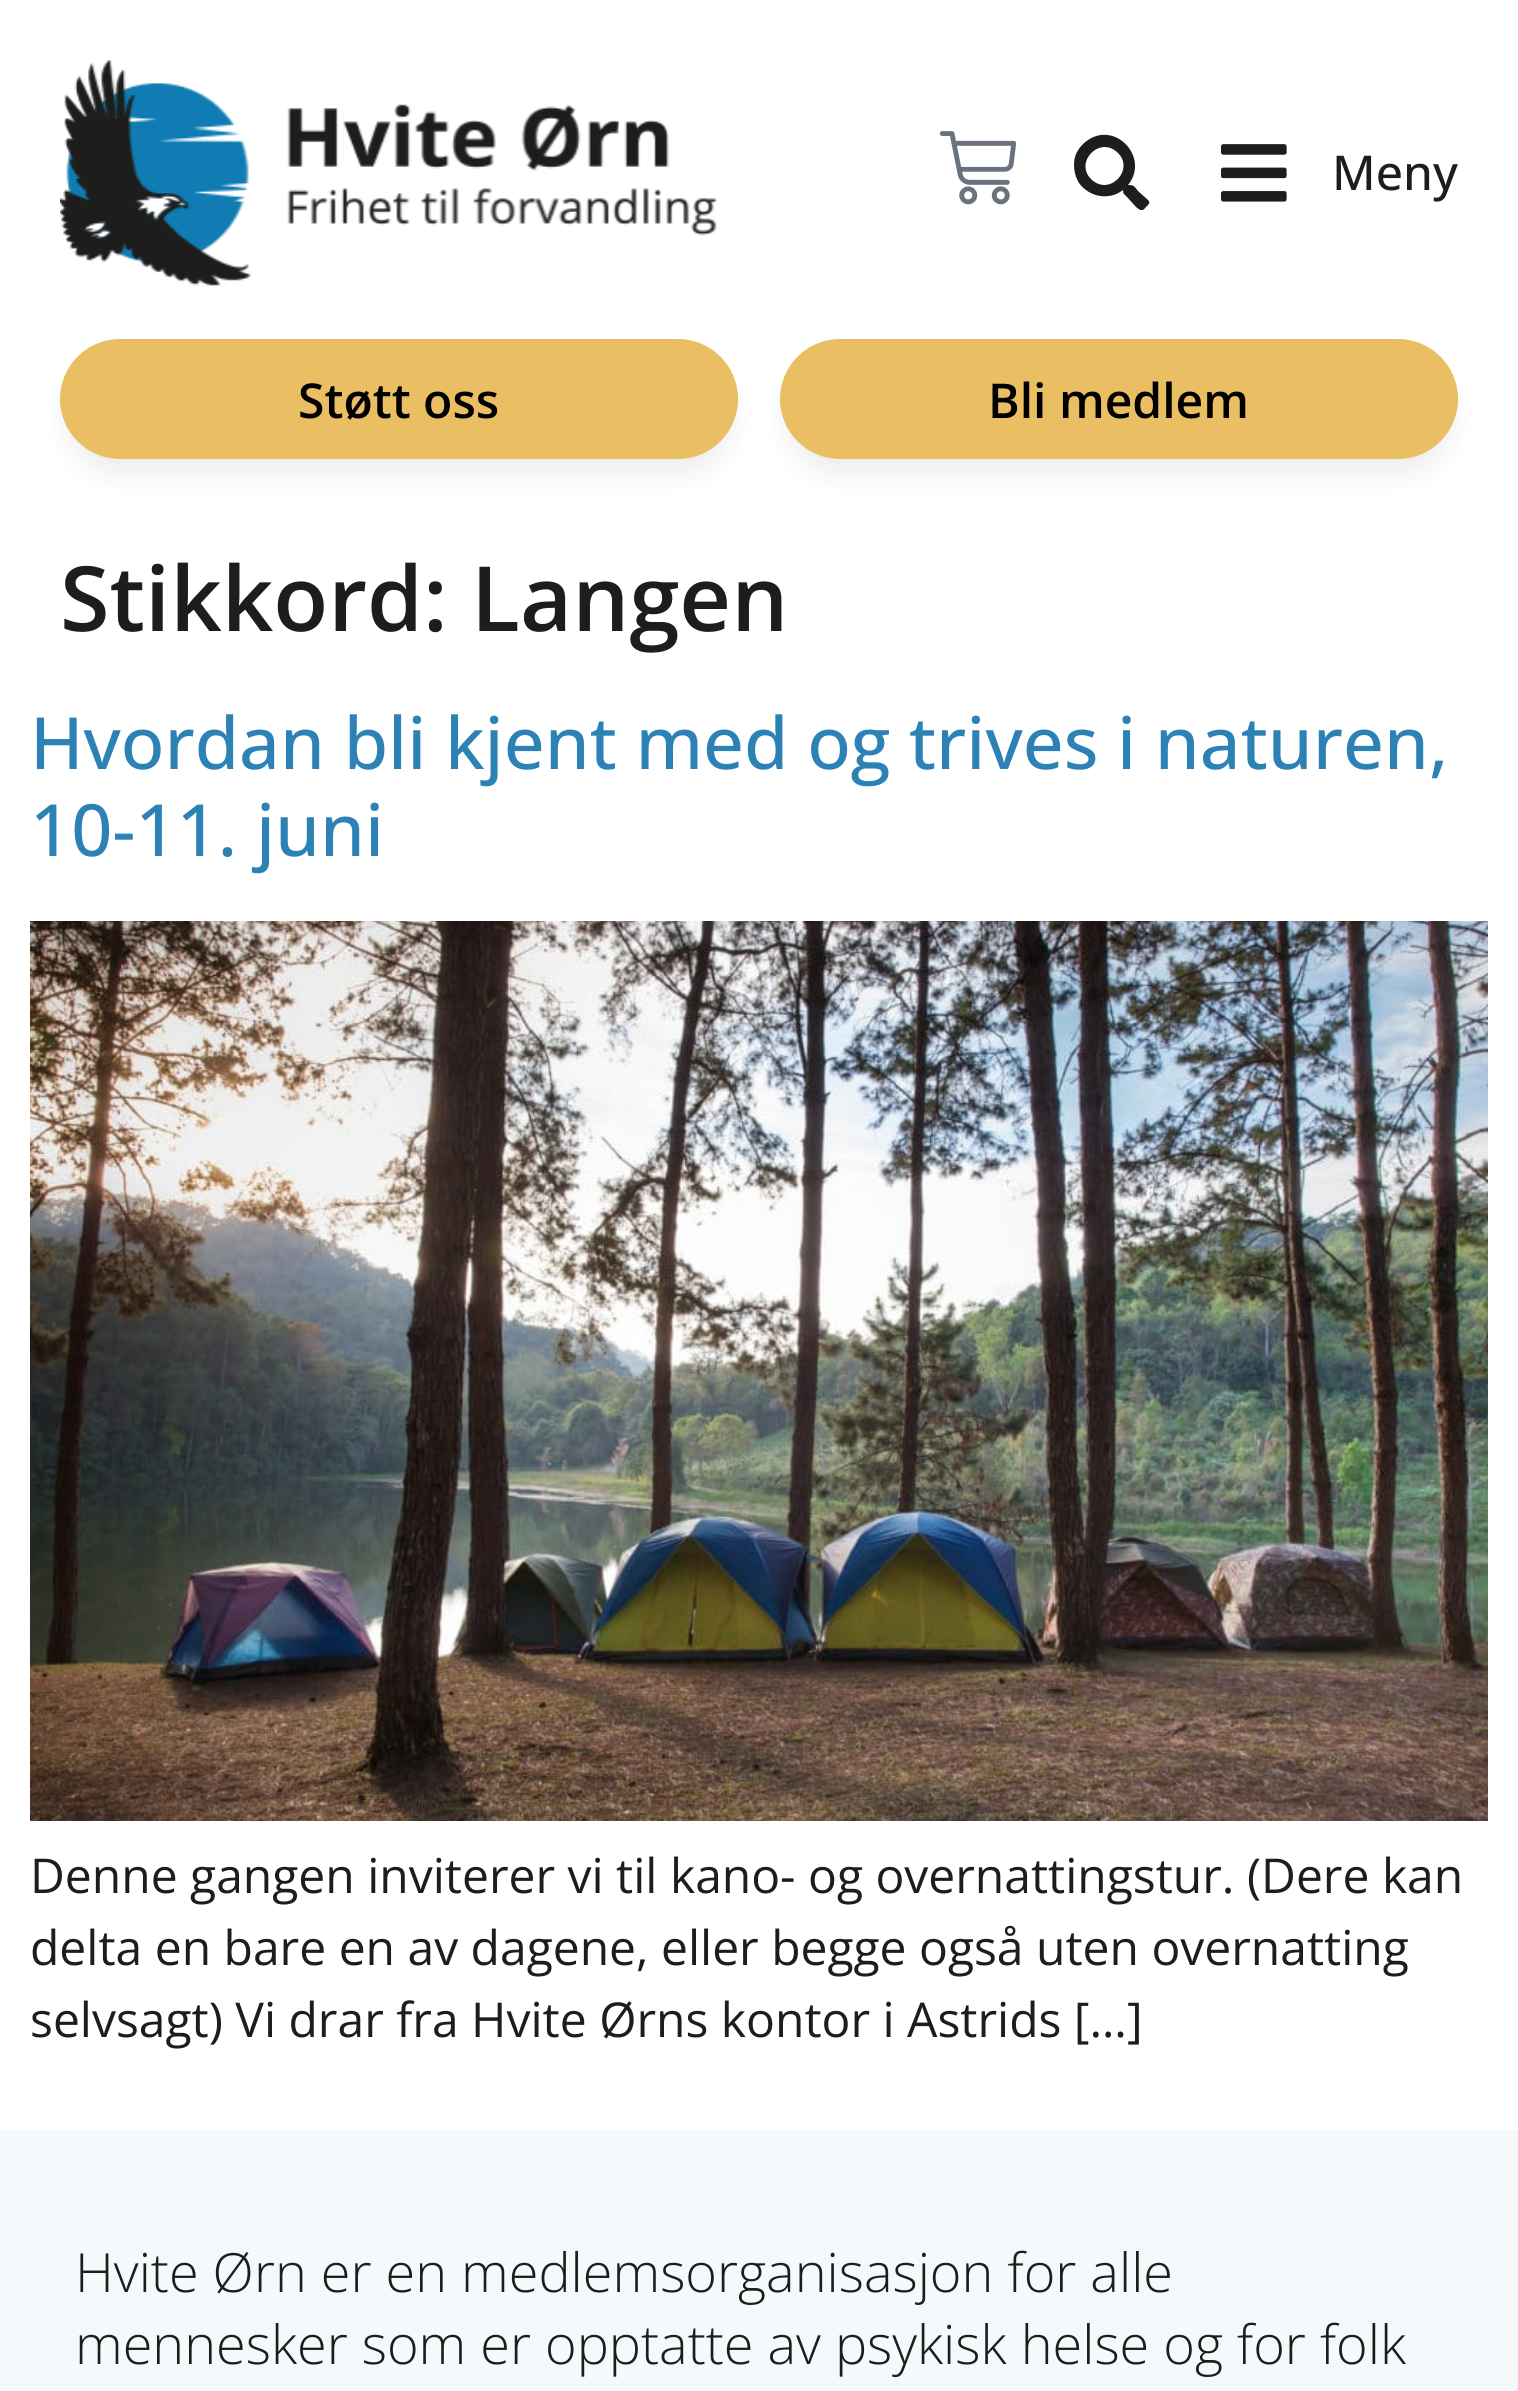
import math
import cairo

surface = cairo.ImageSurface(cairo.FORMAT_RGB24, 1518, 2391)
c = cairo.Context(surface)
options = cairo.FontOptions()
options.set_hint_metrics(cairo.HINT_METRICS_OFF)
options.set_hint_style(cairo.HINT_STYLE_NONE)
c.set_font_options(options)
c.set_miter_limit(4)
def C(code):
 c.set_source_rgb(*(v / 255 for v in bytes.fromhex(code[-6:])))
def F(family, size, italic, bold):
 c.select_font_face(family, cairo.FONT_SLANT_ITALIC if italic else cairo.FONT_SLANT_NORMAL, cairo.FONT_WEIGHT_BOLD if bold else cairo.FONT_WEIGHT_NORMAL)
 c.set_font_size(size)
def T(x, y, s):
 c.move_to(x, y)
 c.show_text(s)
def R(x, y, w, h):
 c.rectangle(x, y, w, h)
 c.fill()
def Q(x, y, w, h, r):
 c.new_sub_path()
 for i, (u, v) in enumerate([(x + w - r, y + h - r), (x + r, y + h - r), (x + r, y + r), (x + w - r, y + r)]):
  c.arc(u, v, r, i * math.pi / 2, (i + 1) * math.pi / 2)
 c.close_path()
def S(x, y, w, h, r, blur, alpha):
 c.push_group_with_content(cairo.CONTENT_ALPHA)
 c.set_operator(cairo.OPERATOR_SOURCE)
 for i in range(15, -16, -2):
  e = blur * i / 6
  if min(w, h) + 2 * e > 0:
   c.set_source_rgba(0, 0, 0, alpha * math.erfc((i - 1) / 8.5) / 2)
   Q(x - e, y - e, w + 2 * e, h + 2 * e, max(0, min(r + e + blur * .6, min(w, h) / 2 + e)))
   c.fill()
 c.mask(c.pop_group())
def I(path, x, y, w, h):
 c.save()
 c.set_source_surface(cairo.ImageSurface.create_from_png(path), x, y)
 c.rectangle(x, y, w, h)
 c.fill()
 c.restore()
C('ffffff')
c.paint()
I('1.png',60,60,657,226)
I('2.png',939,131,78,74)
c.save()
c.rectangle(1056,132,402,78)
c.clip()
C('1d1e1c')
c.new_path()
c.move_to(1148,200)
c.curve_to(1151,203,1148,205,1146,207)
c.curve_to(1142,212,1141,211,1136,207)
c.line_to(1127,197)
c.curve_to(1124,194,1123,194,1123,190)
c.curve_to(1109,201,1089,197,1079,183)
c.curve_to(1074,175,1073,165,1075,157)
c.curve_to(1077,150,1082,144,1088,140)
c.curve_to(1116,121,1150,158,1128,185)
c.curve_to(1134,185,1134,186,1138,191)
c.close_path()
c.move_to(1091,179)
c.curve_to(1109,197,1135,170,1118,153)
c.curve_to(1100,135,1074,162,1091,179)
c.close_path()
c.fill()
c.restore()
I('3.png',1221,144,66,58)
F('Open Sans Medium',48,0,0)
C('1d1e1c')
T(1332,190,'Meny')
C('000000')
S(69,369,660,102,51,15,.08)
C('eabe62')
Q(60,339,678,120,60)
c.fill()
F('Open Sans SemiBold',48,0,0)
C('000000')
T(298,418,'Støtt oss')
C('000000')
S(789,369,660,102,51,15,.08)
C('eabe62')
Q(780,339,678,120,60)
c.fill()
C('000000')
T(988,418,'Bli medlem')
F('Open Sans SemiBold',90,0,0)
C('1d1e1c')
T(60,631,'Stikkord: Langen')
F('Open Sans Medium',72,0,0)
C('2d82b5')
T(30,769,'Hvordan bli kjent med og trives i naturen,')
T(30,856,'10-11. juni')
I('4.png',30,921,1458,900)
F('Open Sans',48,0,0)
C('1d1e1c')
T(30,1893,'Denne gangen inviterer vi til kano- og overnattingstur. (Dere kan')
T(30,1965,'delta en bare en av dagene, eller begge også uten overnatting')
T(30,2037,'selvsagt) Vi drar fra Hvite Ørns kontor i Astrids […]')
C('f5f9fc')
R(0,2130,1518,261)
F('Open Sans Light',54,0,0)
C('1d1e1c')
T(75,2292,'Hvite Ørn er en medlemsorganisasjon for alle')
T(75,2364,'mennesker som er opptatte av psykisk helse og for folk')
surface.write_to_png('o.png')
